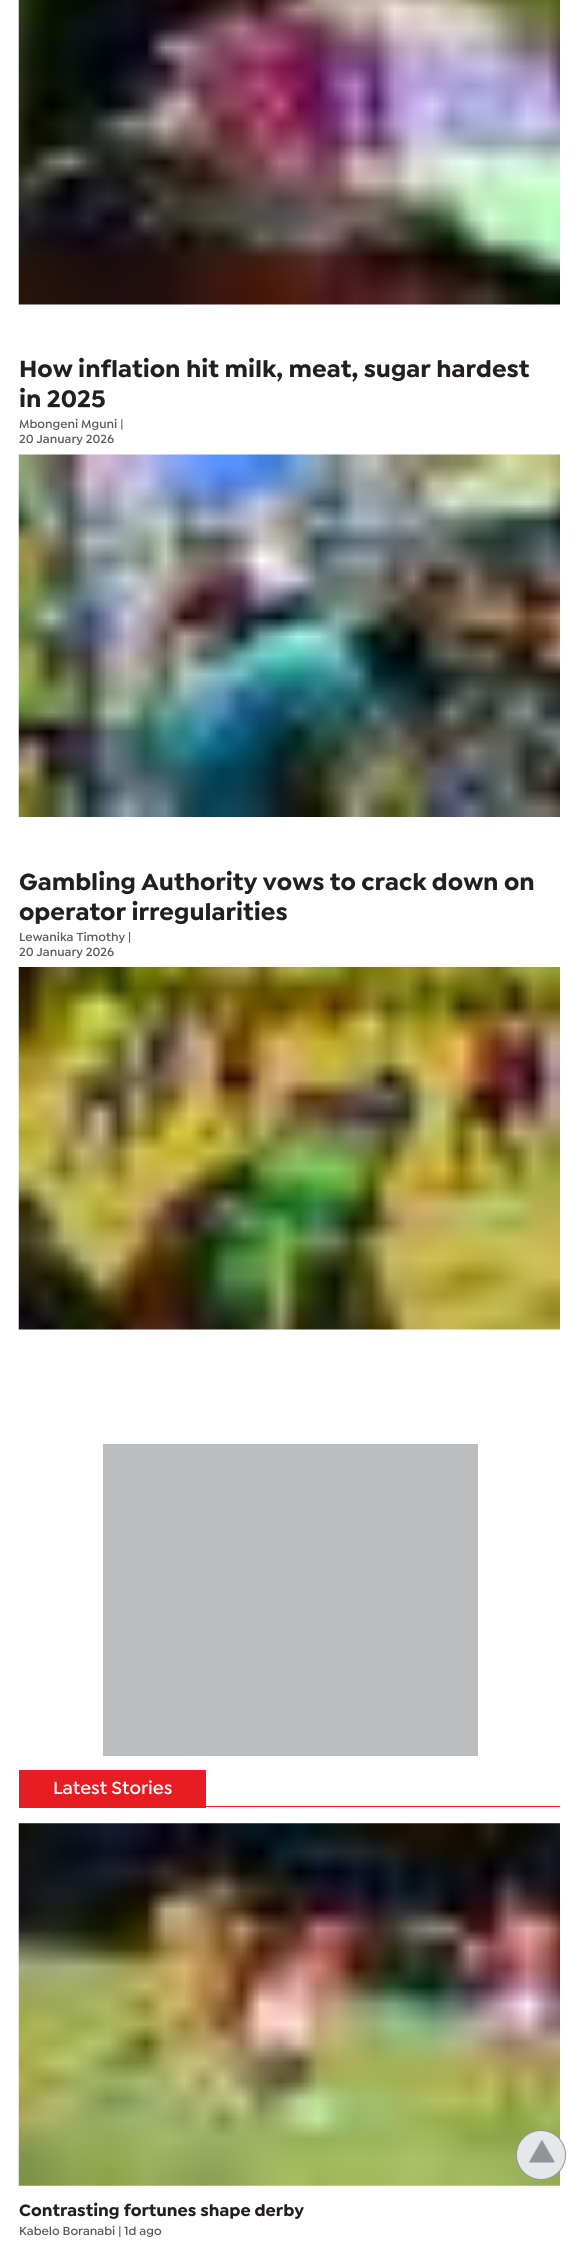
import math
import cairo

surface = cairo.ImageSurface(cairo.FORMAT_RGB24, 578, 2261)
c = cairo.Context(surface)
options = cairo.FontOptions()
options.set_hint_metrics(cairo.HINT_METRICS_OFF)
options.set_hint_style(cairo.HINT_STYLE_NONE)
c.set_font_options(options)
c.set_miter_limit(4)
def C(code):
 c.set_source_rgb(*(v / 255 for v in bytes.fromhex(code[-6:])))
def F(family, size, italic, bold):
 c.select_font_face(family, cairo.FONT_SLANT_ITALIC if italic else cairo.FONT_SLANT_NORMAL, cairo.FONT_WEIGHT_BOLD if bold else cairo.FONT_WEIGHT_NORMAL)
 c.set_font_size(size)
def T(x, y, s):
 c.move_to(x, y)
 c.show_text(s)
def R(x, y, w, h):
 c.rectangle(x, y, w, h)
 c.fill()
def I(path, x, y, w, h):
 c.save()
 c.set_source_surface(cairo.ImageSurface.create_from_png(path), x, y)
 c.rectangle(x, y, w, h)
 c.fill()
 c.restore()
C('ffffff')
c.paint()
I('1.png',18,0,542,305)
F('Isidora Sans',25,0,1)
C('231f20')
T(19,377,'How inflation hit milk, meat, sugar hardest')
T(19,407,'in 2025')
F('Isidora Sans SemiBold',12.5,0,0)
C('58595b')
T(19,428,'Mbongeni Mguni |')
T(19,443,'20 January 2026')
I('2.png',18,454,542,363)
F('Isidora Sans',25,0,1)
C('231f20')
T(19,890,'Gambling Authority vows to crack down on')
T(19,920,'operator irregularities')
F('Isidora Sans SemiBold',12.5,0,0)
C('58595b')
T(19,941,'Lewanika Timothy |')
T(19,956,'20 January 2026')
I('3.png',18,967,542,363)
C('bbbdbf')
R(103,1444,375,312)
C('e81d23')
R(206,1806,354,1)
R(19,1770,187,38)
F('Isidora Sans SemiBold',18.75,0,0)
C('ffffff')
T(53,1794,'Latest Stories')
I('4.png',18,1823,542,363)
F('Isidora Sans',17.5,0,1)
C('231f20')
T(19,2216,'Contrasting fortunes shape derby')
F('Isidora Sans SemiBold',12.5,0,0)
C('58595b')
T(19,2235,'Kabelo Boranabi | 1d ago')
C('e6e7e8')
c.new_path()
c.arc(541,2155,24.5,0,2 * math.pi)
c.fill_preserve()
C('929497')
c.set_line_width(1)
c.stroke()
I('5.png',528,2139,27,24)
surface.write_to_png('o.png')
